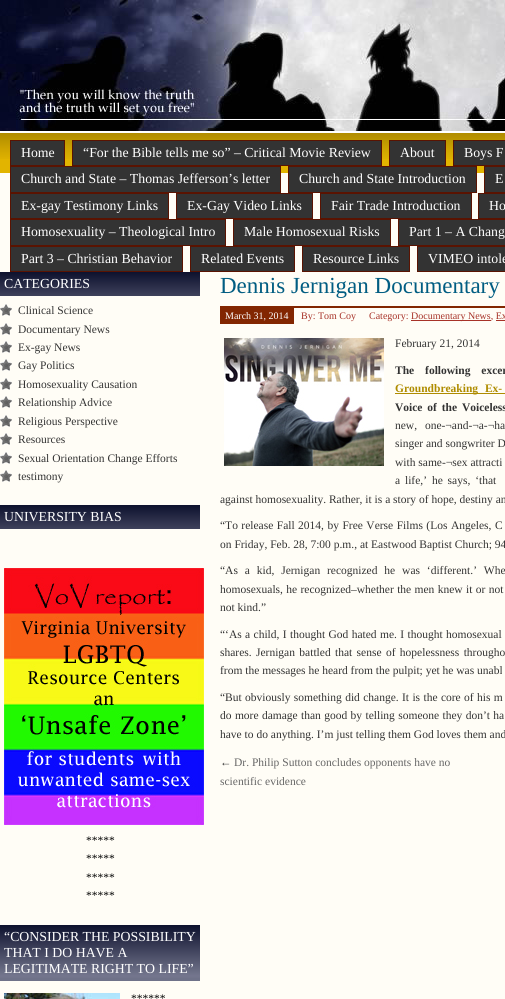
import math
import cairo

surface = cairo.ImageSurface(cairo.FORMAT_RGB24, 505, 999)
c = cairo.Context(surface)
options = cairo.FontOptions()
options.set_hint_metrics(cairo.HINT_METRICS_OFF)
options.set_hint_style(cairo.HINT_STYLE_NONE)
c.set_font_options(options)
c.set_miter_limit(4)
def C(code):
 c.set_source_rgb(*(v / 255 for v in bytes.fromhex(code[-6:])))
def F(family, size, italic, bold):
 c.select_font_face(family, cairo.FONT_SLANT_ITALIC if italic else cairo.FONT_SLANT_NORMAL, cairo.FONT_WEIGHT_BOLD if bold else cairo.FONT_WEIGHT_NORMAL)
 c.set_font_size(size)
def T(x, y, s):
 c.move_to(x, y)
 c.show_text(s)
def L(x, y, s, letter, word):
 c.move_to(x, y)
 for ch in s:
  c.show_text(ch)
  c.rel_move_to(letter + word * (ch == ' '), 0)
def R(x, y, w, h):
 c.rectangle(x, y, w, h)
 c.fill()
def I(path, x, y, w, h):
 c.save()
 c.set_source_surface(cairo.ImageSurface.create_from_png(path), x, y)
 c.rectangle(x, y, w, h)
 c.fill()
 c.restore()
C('fffdf6')
c.paint()
C('ffffff')
R(0,131,505,2)
I('1.png',0,0,505,131)
C('e2b400')
R(0,159,484,14)
I('2.png',0,133,505,26)
C('333333')
c.rectangle(10.5,140.5,54,25)
c.fill_preserve()
C('5a1301')
c.set_line_width(1)
c.stroke()
F('Liberation Serif',13.8,0,0)
C('ffffff')
T(21,157,'Home')
C('333333')
c.rectangle(72.5,140.5,309,25)
c.fill_preserve()
C('5a1301')
c.stroke()
C('ffffff')
T(83,157,'“For the Bible tells me so” – Critical Movie Review')
C('333333')
c.rectangle(389.5,140.5,56,25)
c.fill_preserve()
C('5a1301')
c.stroke()
C('ffffff')
T(400,157,'About')
C('333333')
c.rectangle(453.5,140.5,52,25)
c.fill_preserve()
C('5a1301')
c.stroke()
C('ffffff')
T(464,157,'Boys F')
C('333333')
c.rectangle(10.5,166.5,270,26)
c.fill_preserve()
C('5a1301')
c.stroke()
C('ffffff')
T(21,183,'Church and State – Thomas Jefferson’s letter')
C('333333')
c.rectangle(288.5,166.5,188,26)
c.fill_preserve()
C('5a1301')
c.stroke()
C('ffffff')
T(299,183,'Church and State Introduction')
C('333333')
c.rectangle(484.5,166.5,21,26)
c.fill_preserve()
C('5a1301')
c.stroke()
C('ffffff')
T(495,183,'E')
C('333333')
c.rectangle(10.5,193.5,158,25)
c.fill_preserve()
C('5a1301')
c.stroke()
C('ffffff')
T(21,210,'Ex-gay Testimony Links')
C('333333')
c.rectangle(176.5,193.5,136,25)
c.fill_preserve()
C('5a1301')
c.stroke()
C('ffffff')
T(187,210,'Ex-Gay Video Links')
C('333333')
c.rectangle(320.5,193.5,151,25)
c.fill_preserve()
C('5a1301')
c.stroke()
C('ffffff')
T(331,210,'Fair Trade Introduction')
C('333333')
c.rectangle(478.5,193.5,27,25)
c.fill_preserve()
C('5a1301')
c.stroke()
C('ffffff')
T(489,210,'Ho')
C('333333')
c.rectangle(10.5,219.5,215,26)
c.fill_preserve()
C('5a1301')
c.stroke()
C('ffffff')
T(21,236,'Homosexuality – Theological Intro')
C('333333')
c.rectangle(233.5,219.5,157,26)
c.fill_preserve()
C('5a1301')
c.stroke()
C('ffffff')
T(244,236,'Male Homosexual Risks')
C('333333')
c.rectangle(398.5,219.5,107,26)
c.fill_preserve()
C('5a1301')
c.stroke()
C('ffffff')
T(409,236,'Part 1 – A Chang')
C('333333')
c.rectangle(10.5,246.5,172,25)
c.fill_preserve()
C('5a1301')
c.stroke()
C('ffffff')
T(21,263,'Part 3 – Christian Behavior')
C('333333')
c.rectangle(190.5,246.5,104,25)
c.fill_preserve()
C('5a1301')
c.stroke()
C('ffffff')
T(201,263,'Related Events')
C('333333')
c.rectangle(302.5,246.5,107,25)
c.fill_preserve()
C('5a1301')
c.stroke()
C('ffffff')
T(313,263,'Resource Links')
C('333333')
c.rectangle(417.5,246.5,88,25)
c.fill_preserve()
C('5a1301')
c.stroke()
C('ffffff')
T(428,263,'VIMEO intole')
I('3.png',0,272,200,24)
T(4,288,'CATEGORIES')
I('4.png',0,304,12,12)
F('Liberation Serif',11.5,0,0)
C('333333')
T(18,314,'Clinical Science')
I('4.png',0,323,12,12)
T(18,333,'Documentary News')
I('4.png',0,341,12,12)
T(18,351,'Ex-gay News')
I('4.png',0,359,12,12)
T(18,369,'Gay Politics')
I('4.png',0,378,12,12)
T(18,388,'Homosexuality Causation')
I('4.png',0,396,12,12)
T(18,406,'Relationship Advice')
I('4.png',0,415,12,12)
T(18,425,'Religious Perspective')
I('4.png',0,433,12,12)
T(18,443,'Resources')
I('4.png',0,452,12,12)
T(18,462,'Sexual Orientation Change Efforts')
I('4.png',0,470,12,12)
T(18,480,'testimony')
I('3.png',0,505,200,24)
F('Liberation Serif',13.8,0,0)
C('ffffff')
T(4,521,'UNIVERSITY BIAS')
I('5.png',4,568,200,257)
F('Liberation Serif',11.5,0,0)
C('000000')
T(86,844,'*****')
T(86,862,'*****')
T(86,881,'*****')
T(86,899,'*****')
I('6.png',0,925,200,56)
F('Liberation Serif',13.8,0,0)
C('ffffff')
T(4,941,'“CONSIDER THE POSSIBILITY')
T(4,957,'THAT I DO HAVE A')
T(4,973,'LEGITIMATE RIGHT TO LIFE”')
I('7.png',4,993,116,6)
F('Liberation Serif',11.5,0,0)
C('000000')
T(131,1002,'******')
F('Liberation Serif',23,0,0)
C('015d82')
T(220,293,'Dennis Jernigan Documentary')
C('822601')
R(220,306,285,2)
R(220,308,74,16)
F('Liberation Serif',10,0,0)
C('ffffff')
T(225,319,'March 31, 2014')
C('a73228')
T(301,319,'By: Tom Coy')
T(369,319,'Category:')
R(411,320,80,1)
T(411,319,'Documentary News, Ex')
R(496,320,9,1)
I('8.png',224,338,160,128)
F('Liberation Serif',11.5,0,0)
C('333333')
T(395,347,'February 21, 2014')
F('Liberation Serif',11.5,0,1)
L(395,374,'The following excer',0,8)
C('af8c00')
R(395,393,110,1)
L(395,392,'Groundbreaking Ex-',0,4)
C('333333')
L(395,411,'Voice of the Voiceless',0,2)
F('Liberation Serif',11.5,0,0)
L(395,429,'new, one-¬and-¬a-¬ha',0,5)
T(395,447,'singer and songwriter D')
T(395,466,'with same-¬sex attracti')
L(395,484,'a life,’ he says, ‘that',0,2)
T(220,503,'against homosexuality. Rather, it is a story of hope, destiny an')
L(220,529,'“To release Fall 2014, by Free Verse Films (Los Angeles, C',0,.6)
T(220,548,'on Friday, Feb. 28, 7:00 p.m., at Eastwood Baptist Church; 94')
L(220,574,'“As a kid, Jernigan recognized he was ‘different.’ Whe',0,4)
L(220,593,'homosexuals, he recognized–whether the men knew it or not',0,.5)
T(220,611,'not kind.”')
L(220,638,'“‘As a child, I thought God hated me. I thought homosexual',0,.5)
L(220,656,'shares. Jernigan battled that sense of hopelessness througho',0,1.5)
T(220,674,'from the messages he heard from the pulpit; yet he was unabl')
L(220,701,'“But obviously something did change. It is the core of his m',0,.5)
L(220,719,'do more damage than good by telling someone they don’t ha',0,.5)
T(220,738,'have to do anything. I’m just telling them God loves them and')
T(220,766,'←')
C('666666')
T(234,766,'Dr. Philip Sutton concludes opponents have no')
T(220,785,'scientific evidence')
surface.write_to_png('o.png')
